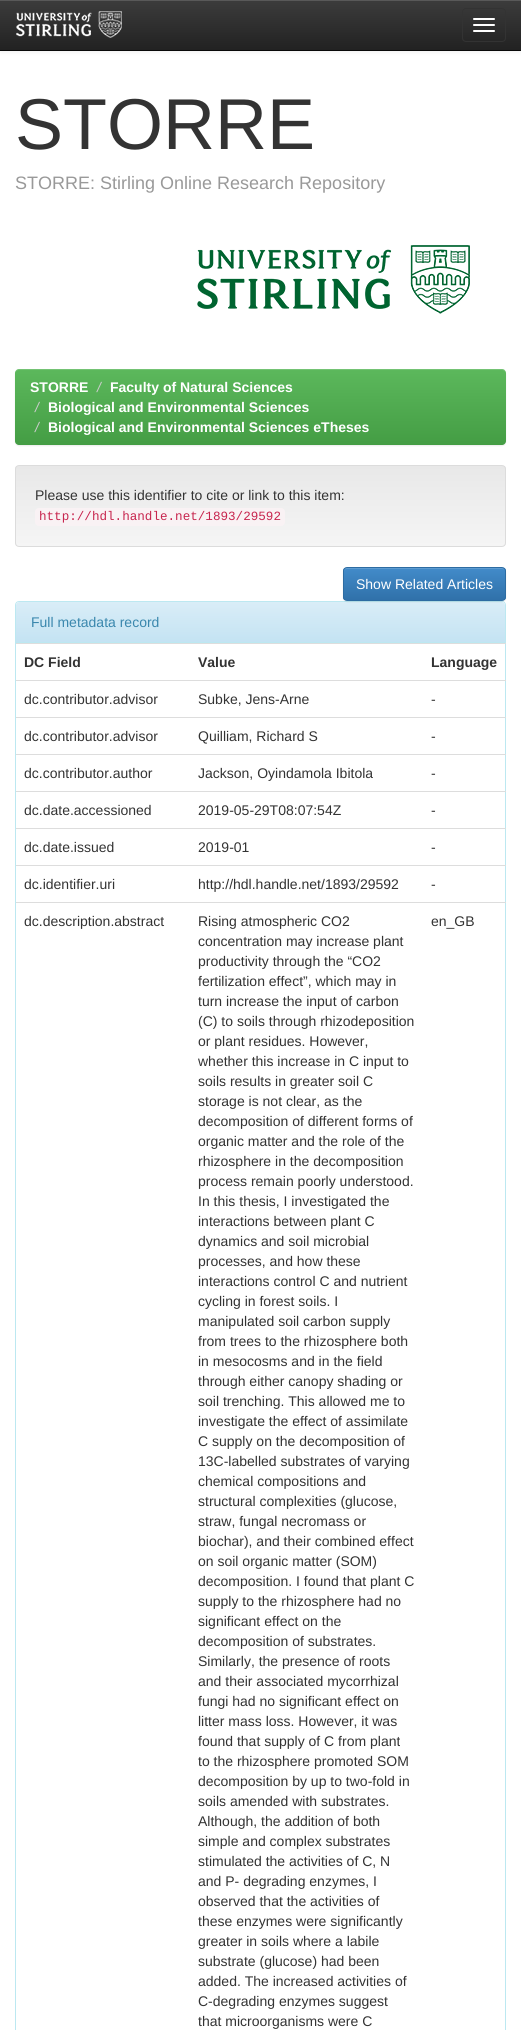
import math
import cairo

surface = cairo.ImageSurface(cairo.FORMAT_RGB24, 521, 2030)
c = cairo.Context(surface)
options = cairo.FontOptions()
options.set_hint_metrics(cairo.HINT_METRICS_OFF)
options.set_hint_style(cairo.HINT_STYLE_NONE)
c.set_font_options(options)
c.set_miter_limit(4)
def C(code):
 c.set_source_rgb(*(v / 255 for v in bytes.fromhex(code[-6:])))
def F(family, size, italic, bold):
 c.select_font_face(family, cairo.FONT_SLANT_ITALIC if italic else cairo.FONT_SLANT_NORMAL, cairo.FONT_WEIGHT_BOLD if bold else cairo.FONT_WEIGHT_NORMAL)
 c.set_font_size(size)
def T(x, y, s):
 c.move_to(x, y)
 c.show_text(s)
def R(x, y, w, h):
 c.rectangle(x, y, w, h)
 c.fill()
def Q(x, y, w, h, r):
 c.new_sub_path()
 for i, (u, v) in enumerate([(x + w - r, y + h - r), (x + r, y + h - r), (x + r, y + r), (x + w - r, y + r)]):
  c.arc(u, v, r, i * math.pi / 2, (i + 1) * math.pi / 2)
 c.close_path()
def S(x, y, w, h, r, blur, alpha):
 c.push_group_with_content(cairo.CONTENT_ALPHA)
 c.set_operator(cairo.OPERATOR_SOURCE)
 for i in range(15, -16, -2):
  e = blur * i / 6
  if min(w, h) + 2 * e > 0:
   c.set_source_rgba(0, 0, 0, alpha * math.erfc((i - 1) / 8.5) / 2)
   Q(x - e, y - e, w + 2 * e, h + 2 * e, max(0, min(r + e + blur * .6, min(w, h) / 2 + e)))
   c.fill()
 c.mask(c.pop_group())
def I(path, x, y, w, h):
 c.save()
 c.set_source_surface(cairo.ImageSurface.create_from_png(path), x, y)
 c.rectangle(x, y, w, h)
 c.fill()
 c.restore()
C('ffffff')
c.paint()
C('000000')
S(0,1,521,51,0,2.5,.07)
gradient = cairo.LinearGradient(261,0,261,50)
gradient.add_color_stop_rgba(0,0.235,0.235,0.235,1)
gradient.add_color_stop_rgba(1,0.133,0.133,0.133,1)
c.set_source(gradient)
R(0,1,521,49)
C('595959')
R(0,0,521,1)
C('080808')
R(0,50,521,1)
I('1.png',16,11,106,27)
Q(462.5,8.5,43,33,3.5)
C('333333')
c.set_line_width(1)
c.stroke()
C('ffffff')
Q(473,18,22,2,1)
c.fill()
Q(473,24,22,2,1)
c.fill()
Q(473,30,22,2,1)
c.fill()
F('Liberation Sans',72,0,0)
C('333333')
T(15,149,'STORRE')
F('Liberation Sans',18,0,0)
C('999999')
T(15,189,'STORRE: Stirling Online Research Repository')
I('2.png',197,245,273,69)
C('000000')
S(15,370,491,76,4,.5,.07)
gradient = cairo.LinearGradient(261,369,261,445)
gradient.add_color_stop_rgba(0,0.361,0.722,0.361,1)
gradient.add_color_stop_rgba(1,0.267,0.616,0.267,1)
c.set_source(gradient)
Q(15,369,491,76,4)
c.fill()
c.set_source_rgba(1,1,1,0.15)
c.new_path()
c.move_to(19,370)
c.line_to(502,370)
c.curve_to(504,370,506,372,506,374)
c.curve_to(506,371,505,369,502,369)
c.line_to(19,369)
c.curve_to(16,369,15,371,15,374)
c.curve_to(15,372,17,370,19,370)
c.close_path()
c.fill()
F('Liberation Sans',14,0,1)
C('ffffff')
T(30,392,'STORRE')
F('Liberation Sans',14,1,0)
C('cccccc')
T(97,392,'/')
F('Liberation Sans',14,0,1)
C('ffffff')
T(110,392,'Faculty of Natural Sciences')
F('Liberation Sans',14,1,0)
C('cccccc')
T(35,412,'/')
F('Liberation Sans',14,0,1)
C('ffffff')
T(48,412,'Biological and Environmental Sciences')
F('Liberation Sans',14,1,0)
C('cccccc')
T(35,432,'/')
F('Liberation Sans',14,0,1)
C('ffffff')
T(48,432,'Biological and Environmental Sciences eTheses')
c.save()
Q(15,465,491,82,4)
c.clip()
gradient = cairo.LinearGradient(261,466,261,546)
gradient.add_color_stop_rgba(0,0.91,0.91,0.91,1)
gradient.add_color_stop_rgba(1,0.961,0.961,0.961,1)
c.set_source(gradient)
R(15,466,491,80)
c.restore()
Q(15.5,465.5,490,81,3.5)
C('dcdcdc')
c.stroke()
F('Liberation Sans',14,0,0)
C('333333')
T(35,500,'Please use this identifier to cite or link to this item:')
C('f9f2f4')
Q(35,508,250,18,4)
c.fill()
F('Liberation Mono',12.6,0,0)
C('c7254e')
T(39,520,'http://hdl.handle.net/1893/29592')
Q(15.5,601.5,490,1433,3.5)
C('bce8f1')
c.stroke()
gradient = cairo.LinearGradient(261,602,261,642)
gradient.add_color_stop_rgba(0,0.851,0.929,0.969,1)
gradient.add_color_stop_rgba(1,0.769,0.89,0.953,1)
c.set_source(gradient)
c.new_path()
c.move_to(19,602)
c.line_to(502,602)
c.curve_to(503.5,602,505,603.5,505,605)
c.line_to(505,642)
c.line_to(16,642)
c.line_to(16,605)
c.curve_to(16,603.5,17.5,602,19,602)
c.close_path()
c.fill()
C('000000')
S(343,568,163,34,4,.5,.07)
c.save()
Q(343,567,163,34,4)
c.clip()
gradient = cairo.LinearGradient(425,568,425,600)
gradient.add_color_stop_rgba(0,0.259,0.545,0.792,1)
gradient.add_color_stop_rgba(1,0.188,0.443,0.663,1)
c.set_source(gradient)
R(343,568,163,32)
c.restore()
C('5e9cd1')
c.new_path()
c.move_to(347,569)
c.line_to(502,569)
c.curve_to(504,569,505,570,505,572)
c.curve_to(505,570,504,568,502,568)
c.line_to(346,568)
c.curve_to(344,568,344,570,344,572)
c.curve_to(344,570,345,569,347,569)
c.close_path()
c.fill()
Q(343.5,567.5,162,33,3.5)
C('2d6ca2')
c.stroke()
F('Liberation Sans',14,0,0)
C('ffffff')
T(356,589,'Show Related Articles')
C('bce8f1')
R(16,642,489,1)
C('3a87ad')
T(31,627,'Full metadata record')
F('Liberation Sans',14,0,1)
C('333333')
T(24,667,'DC Field')
T(198,667,'Value')
C('dddddd')
R(16,643,490,1)
C('333333')
T(431,667,'Language')
F('Liberation Sans',14,0,0)
T(24,704,'dc.contributor.advisor')
T(198,704,'Subke, Jens-Arne')
C('dddddd')
R(16,680,490,1)
C('333333')
T(431,704,'-')
T(24,741,'dc.contributor.advisor')
T(198,741,'Quilliam, Richard S')
C('dddddd')
R(16,717,490,1)
C('333333')
T(431,741,'-')
T(24,778,'dc.contributor.author')
T(198,778,'Jackson, Oyindamola Ibitola')
C('dddddd')
R(16,754,490,1)
C('333333')
T(431,778,'-')
T(24,815,'dc.date.accessioned')
T(198,815,'2019-05-29T08:07:54Z')
C('dddddd')
R(16,791,490,1)
C('333333')
T(431,815,'-')
T(24,852,'dc.date.issued')
T(198,852,'2019-01')
C('dddddd')
R(16,828,490,1)
C('333333')
T(431,852,'-')
T(24,889,'dc.identifier.uri')
T(198,889,'http://hdl.handle.net/1893/29592')
C('dddddd')
R(16,865,490,1)
C('333333')
T(431,889,'-')
T(24,926,'dc.description.abstract')
T(198,926,'Rising atmospheric CO2')
T(198,946,'concentration may increase plant')
T(198,966,'productivity through the “CO2')
T(198,986,'fertilization effect”, which may in')
T(198,1006,'turn increase the input of carbon')
T(198,1026,'(C) to soils through rhizodeposition')
T(198,1046,'or plant residues. However,')
T(198,1066,'whether this increase in C input to')
T(198,1086,'soils results in greater soil C')
T(198,1106,'storage is not clear, as the')
T(198,1126,'decomposition of different forms of')
T(198,1146,'organic matter and the role of the')
T(198,1166,'rhizosphere in the decomposition')
T(198,1186,'process remain poorly understood.')
T(198,1206,'In this thesis, I investigated the')
T(198,1226,'interactions between plant C')
T(198,1246,'dynamics and soil microbial')
T(198,1266,'processes, and how these')
T(198,1286,'interactions control C and nutrient')
T(198,1306,'cycling in forest soils. I')
T(198,1326,'manipulated soil carbon supply')
T(198,1346,'from trees to the rhizosphere both')
T(198,1366,'in mesocosms and in the field')
T(198,1386,'through either canopy shading or')
T(198,1406,'soil trenching. This allowed me to')
T(198,1426,'investigate the effect of assimilate')
T(198,1446,'C supply on the decomposition of')
T(198,1466,'13C-labelled substrates of varying')
T(198,1486,'chemical compositions and')
T(198,1506,'structural complexities (glucose,')
T(198,1526,'straw, fungal necromass or')
T(198,1546,'biochar), and their combined effect')
T(198,1566,'on soil organic matter (SOM)')
T(198,1586,'decomposition. I found that plant C')
T(198,1606,'supply to the rhizosphere had no')
T(198,1626,'significant effect on the')
T(198,1646,'decomposition of substrates.')
T(198,1666,'Similarly, the presence of roots')
T(198,1686,'and their associated mycorrhizal')
T(198,1706,'fungi had no significant effect on')
T(198,1726,'litter mass loss. However, it was')
T(198,1746,'found that supply of C from plant')
T(198,1766,'to the rhizosphere promoted SOM')
T(198,1786,'decomposition by up to two-fold in')
T(198,1806,'soils amended with substrates.')
T(198,1826,'Although, the addition of both')
T(198,1846,'simple and complex substrates')
T(198,1866,'stimulated the activities of C, N')
T(198,1886,'and P- degrading enzymes, I')
T(198,1906,'observed that the activities of')
T(198,1926,'these enzymes were significantly')
T(198,1946,'greater in soils where a labile')
T(198,1966,'substrate (glucose) had been')
T(198,1986,'added. The increased activities of')
T(198,2006,'C-degrading enzymes suggest')
T(198,2026,'that microorganisms were C')
C('dddddd')
R(16,902,490,1)
C('333333')
T(431,926,'en_GB')
surface.write_to_png('o.png')
